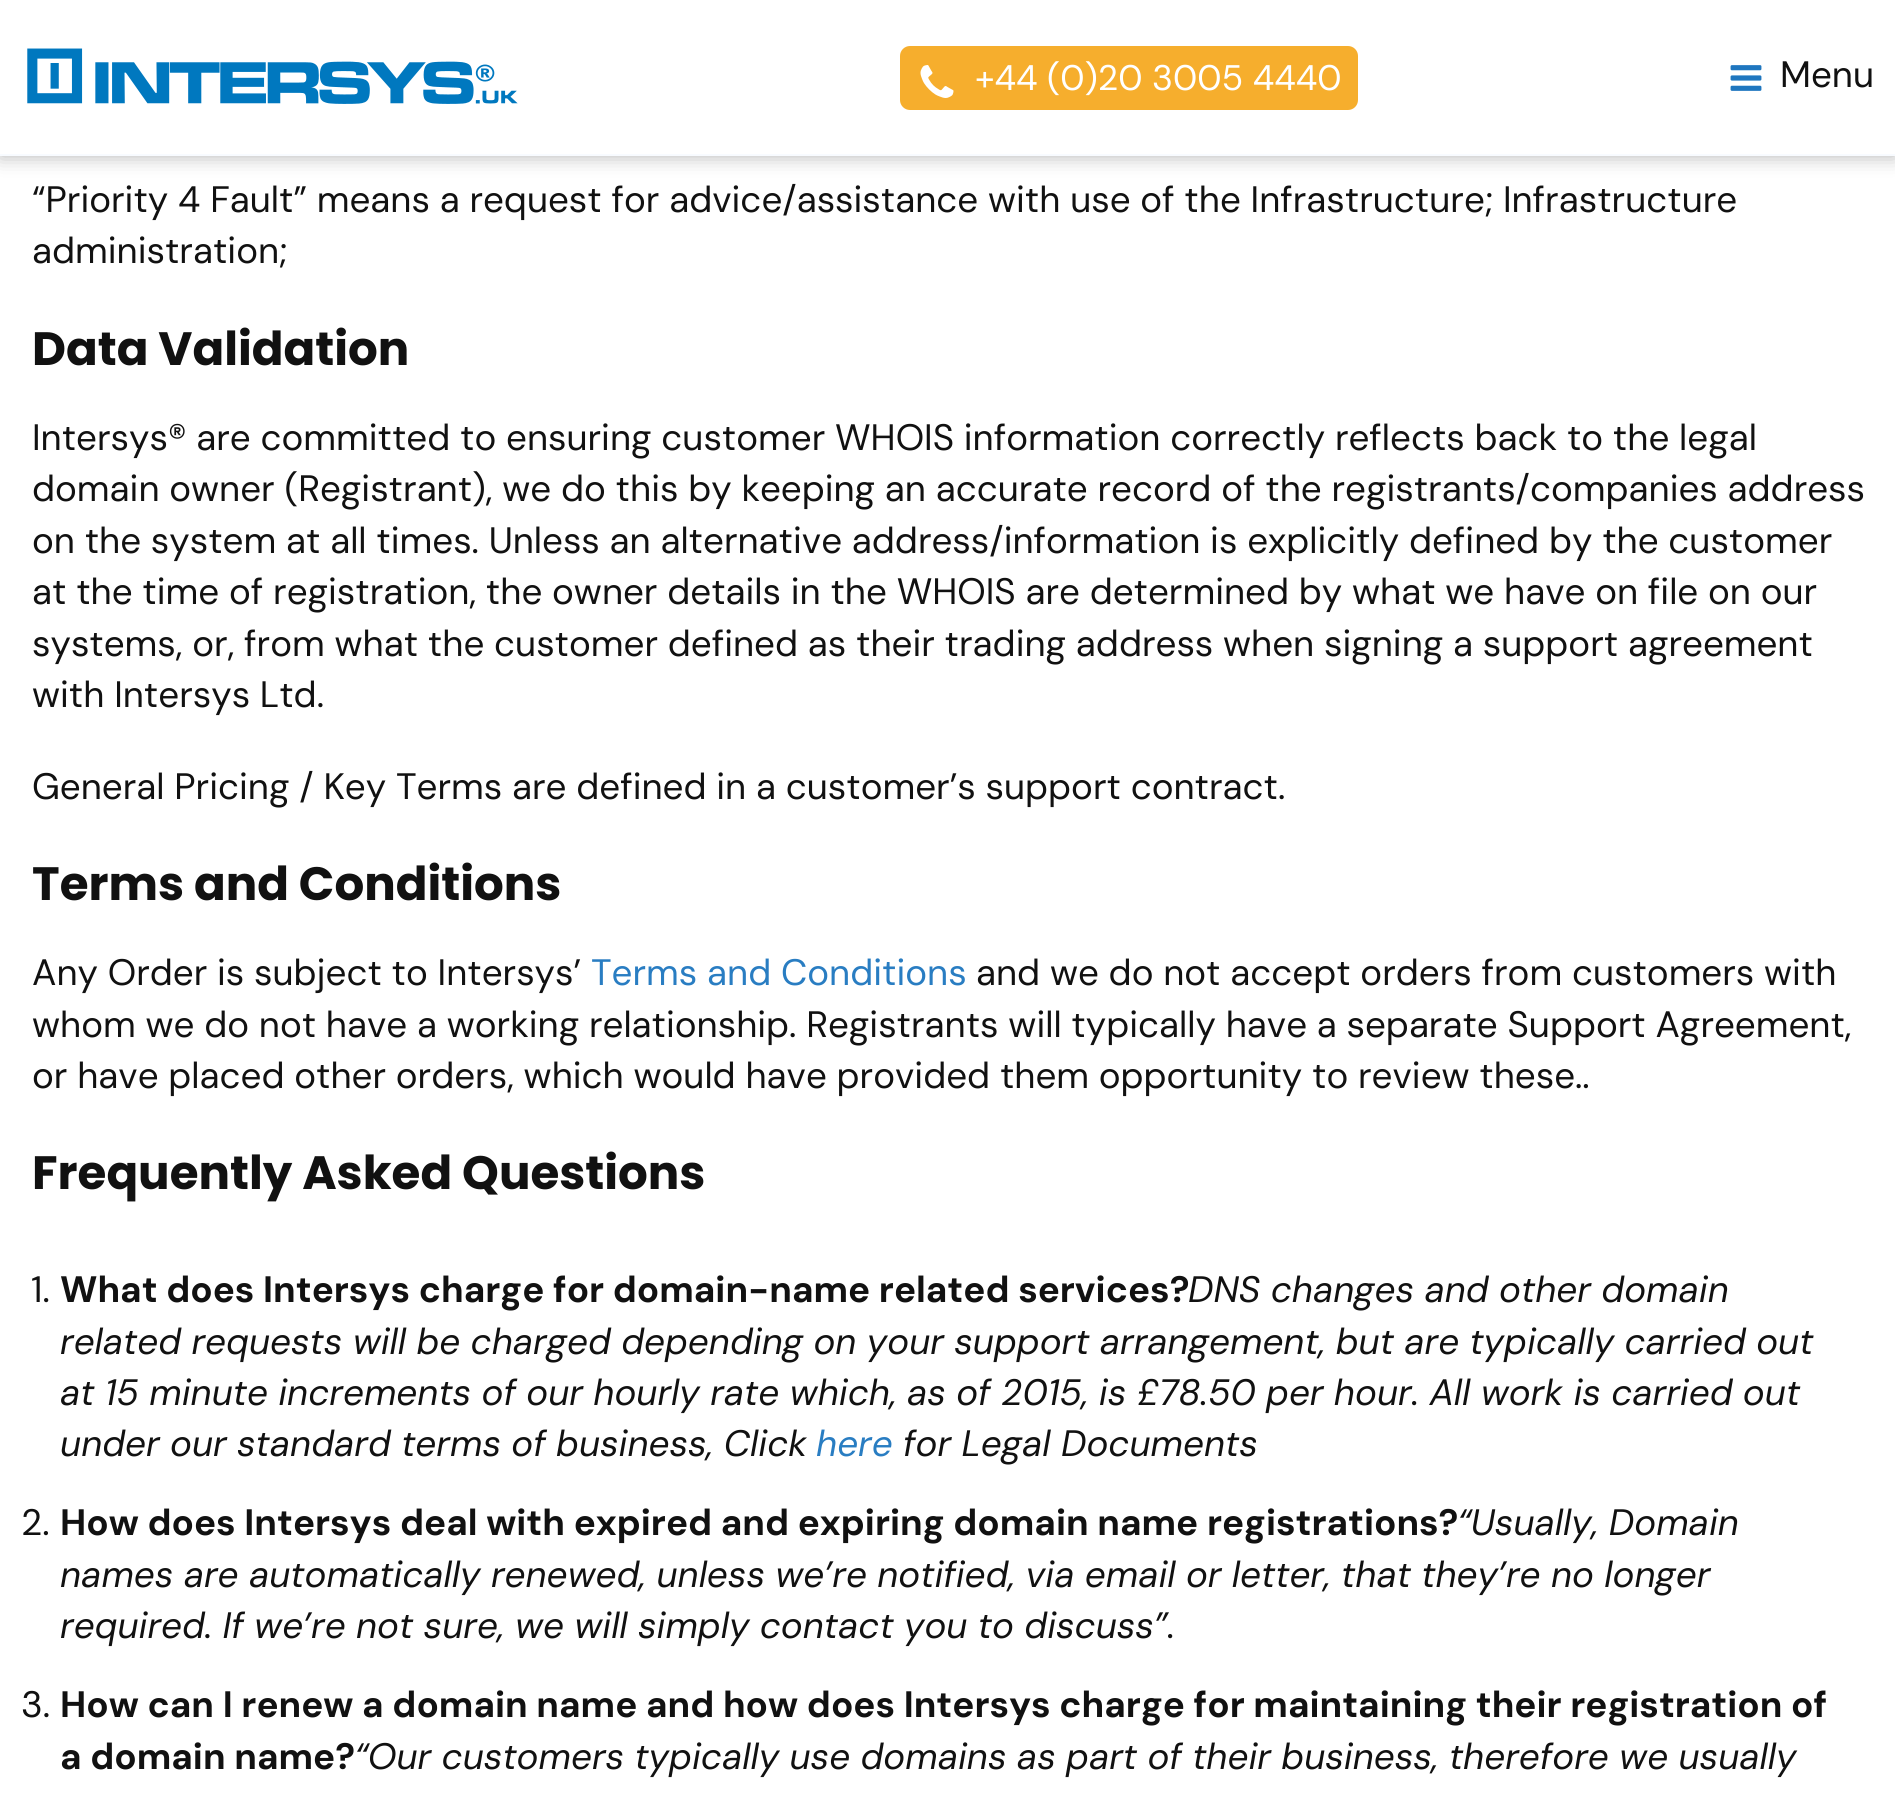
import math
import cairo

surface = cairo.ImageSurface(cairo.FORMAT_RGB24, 1895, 1794)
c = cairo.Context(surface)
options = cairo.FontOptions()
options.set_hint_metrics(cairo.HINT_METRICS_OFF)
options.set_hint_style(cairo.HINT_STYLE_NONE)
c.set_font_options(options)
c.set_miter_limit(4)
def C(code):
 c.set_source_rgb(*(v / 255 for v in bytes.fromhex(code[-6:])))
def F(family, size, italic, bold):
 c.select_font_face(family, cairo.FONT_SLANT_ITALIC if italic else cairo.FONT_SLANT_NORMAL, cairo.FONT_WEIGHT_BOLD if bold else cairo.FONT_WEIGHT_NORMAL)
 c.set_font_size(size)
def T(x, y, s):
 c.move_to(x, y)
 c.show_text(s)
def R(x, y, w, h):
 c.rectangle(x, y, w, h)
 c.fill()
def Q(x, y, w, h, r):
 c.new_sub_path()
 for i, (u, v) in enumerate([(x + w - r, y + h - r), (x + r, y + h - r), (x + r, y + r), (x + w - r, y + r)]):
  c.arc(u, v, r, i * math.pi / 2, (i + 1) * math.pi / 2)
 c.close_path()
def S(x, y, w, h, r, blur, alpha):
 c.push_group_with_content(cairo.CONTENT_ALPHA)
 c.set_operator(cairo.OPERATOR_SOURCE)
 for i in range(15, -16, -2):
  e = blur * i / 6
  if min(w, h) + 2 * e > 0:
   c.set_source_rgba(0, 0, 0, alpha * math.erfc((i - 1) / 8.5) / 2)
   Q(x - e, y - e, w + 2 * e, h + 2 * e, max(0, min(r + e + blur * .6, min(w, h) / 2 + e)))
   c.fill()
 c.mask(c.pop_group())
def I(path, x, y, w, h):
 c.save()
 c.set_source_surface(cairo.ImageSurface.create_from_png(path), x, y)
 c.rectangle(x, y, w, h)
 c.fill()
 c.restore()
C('ffffff')
c.paint()
C('000000')
S(0,0,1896,156,0,10,.3)
C('ffffff')
R(0,0,1895,154)
C('f8fbff')
R(0,154,1895,2)
I('1.png',27,48,491,56)
C('f6ae2d')
Q(900,46,458,64,10)
c.fill()
I('2.png',920,65,34,33)
F('DM Sans',35.5,0,0)
C('ffffff')
T(975,90,'+44 (0)20 3005 4440')
I('3.png',1730,65,32,26)
F('DM Sans',36.75,0,0)
C('111111')
T(1780,87,'Menu')
T(32,212,'“Priority 4 Fault” means a request for advice/assistance with use of the Infrastructure; Infrastructure')
T(32,263,'administration;')
F('Poppins',46.75,0,1)
T(32,365,'Data Validation')
F('DM Sans',36.75,0,0)
T(32,450,'Intersys® are committed to ensuring customer WHOIS information correctly reflects back to the legal')
T(32,501,'domain owner (Registrant), we do this by keeping an accurate record of the registrants/companies address')
T(32,553,'on the system at all times. Unless an alternative address/information is explicitly defined by the customer')
T(32,604,'at the time of registration, the owner details in the WHOIS are determined by what we have on file on our')
T(32,656,'systems, or, from what the customer defined as their trading address when signing a support agreement')
T(32,707,'with Intersys Ltd.')
T(32,799,'General Pricing / Key Terms are defined in a customer’s support contract.')
F('Poppins',46.75,0,1)
T(32,900,'Terms and Conditions')
F('DM Sans',36.75,0,0)
T(32,985,'Any Order is subject to Intersys’')
C('297dc2')
T(591,985,'Terms and Conditions')
C('111111')
T(976,985,'and we do not accept orders from customers with')
T(32,1037,'whom we do not have a working relationship. Registrants will typically have a separate Support Agreement,')
T(32,1088,'or have placed other orders, which would have provided them opportunity to review these..')
F('Poppins',46.75,0,1)
T(32,1189,'Frequently Asked Questions')
F('DM Sans',36.75,0,0)
T(31,1302,'1.')
F('DM Sans',36.75,0,1)
T(60,1302,'What does Intersys charge for domain-name related services?')
F('DM Sans',36.75,1,0)
T(1188,1302,'DNS changes and other domain')
T(60,1354,'related requests will be charged depending on your support arrangement, but are typically carried out')
T(60,1405,'at 15 minute increments of our hourly rate which, as of 2015, is £78.50 per hour. All work is carried out')
T(60,1456,'under our standard terms of business, Click')
C('297dc2')
T(816,1456,'here')
C('111111')
T(903,1456,'for Legal Documents')
F('DM Sans',36.75,0,0)
T(21,1535,'2.')
F('DM Sans',36.75,0,1)
T(60,1535,'How does Intersys deal with expired and expiring domain name registrations?')
F('DM Sans',36.75,1,0)
T(1457,1535,'“Usually, Domain')
T(60,1587,'names are automatically renewed, unless we’re notified, via email or letter, that they’re no longer')
T(60,1638,'required. If we’re not sure, we will simply contact you to discuss”.')
F('DM Sans',36.75,0,0)
T(21,1717,'3.')
F('DM Sans',36.75,0,1)
T(60,1717,'How can I renew a domain name and how does Intersys charge for maintaining their registration of')
T(60,1769,'a domain name?')
F('DM Sans',36.75,1,0)
T(354,1769,'“Our customers typically use domains as part of their business, therefore we usually')
surface.write_to_png('o.png')
